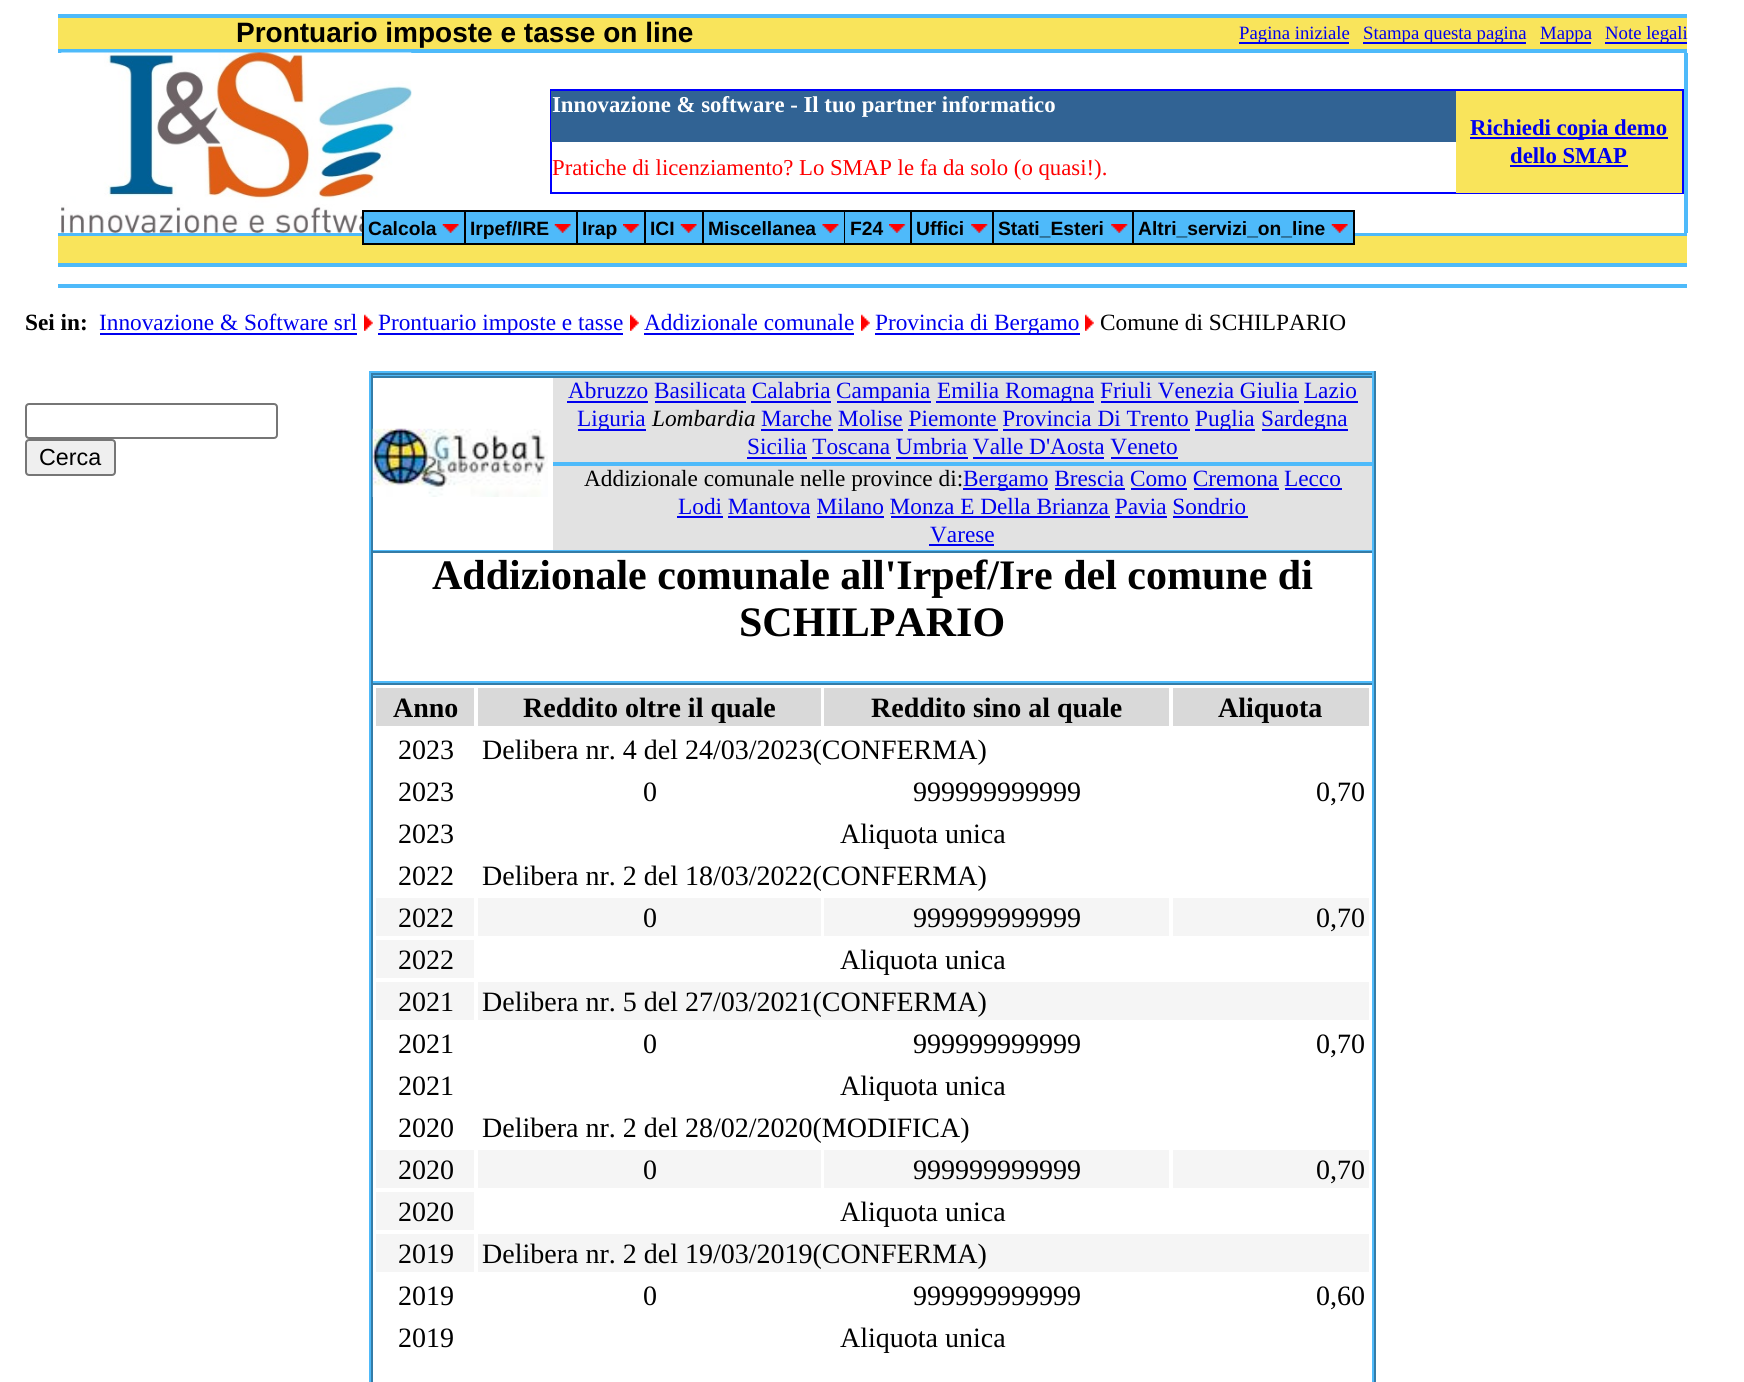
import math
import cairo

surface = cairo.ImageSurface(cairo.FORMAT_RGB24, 1744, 1382)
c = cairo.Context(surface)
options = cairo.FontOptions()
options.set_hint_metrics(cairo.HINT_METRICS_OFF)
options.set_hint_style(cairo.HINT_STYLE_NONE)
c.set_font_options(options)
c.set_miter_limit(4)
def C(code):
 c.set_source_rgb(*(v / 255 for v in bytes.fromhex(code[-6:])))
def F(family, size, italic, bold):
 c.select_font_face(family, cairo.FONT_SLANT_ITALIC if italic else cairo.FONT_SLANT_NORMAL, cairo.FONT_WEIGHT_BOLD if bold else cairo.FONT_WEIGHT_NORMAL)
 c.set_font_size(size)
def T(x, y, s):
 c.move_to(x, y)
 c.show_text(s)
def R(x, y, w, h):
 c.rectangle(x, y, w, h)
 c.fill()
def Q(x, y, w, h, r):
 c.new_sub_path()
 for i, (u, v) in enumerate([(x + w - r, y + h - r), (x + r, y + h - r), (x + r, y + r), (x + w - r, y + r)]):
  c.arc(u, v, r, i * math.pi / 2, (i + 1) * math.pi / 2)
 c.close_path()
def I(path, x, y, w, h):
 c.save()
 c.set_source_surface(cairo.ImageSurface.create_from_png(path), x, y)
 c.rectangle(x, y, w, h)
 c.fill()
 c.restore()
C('ffffff')
c.paint()
C('4ebafa')
R(58,14,1629,4)
C('f9e45b')
R(58,18,1629,31)
F('Liberation Sans',28,0,1)
C('000000')
T(236,42,'Prontuario imposte e tasse on line')
C('0000ee')
R(1239,42,110,2)
F('Liberation Serif',18.75,0,0)
T(1239,39,'Pagina iniziale')
R(1363,42,163,2)
T(1363,39,'Stampa questa pagina')
R(1540,42,51,2)
T(1540,39,'Mappa')
R(1605,42,82,2)
T(1605,39,'Note legali')
C('4ebafa')
R(58,49,1629,4)
I('1.png',61,52,351,181)
c.rectangle(551,90,1132,103)
C('0000ff')
c.stroke()
C('316394')
R(551,91,905,51)
F('Liberation Serif',22.75,0,1)
C('ffffff')
T(552,112,'Innovazione & software - Il tuo partner informatico')
C('f9e45b')
R(1456,91,226,102)
C('0000ee')
R(1470,137,198,2)
T(1470,135,'Richiedi copia demo')
T(1510,163,'dello SMAP')
R(1510,165,118,2)
F('Liberation Serif',22.75,0,0)
C('ff0000')
T(552,175,'Pratiche di licenziamento? Lo SMAP le fa da solo (o quasi!).')
C('4ebafa')
R(1684,53,4,180)
R(58,233,1629,3)
C('f9e45b')
R(58,236,1629,27)
C('4ebafa')
R(58,263,1629,4)
R(58,284,1629,4)
C('000000')
R(362,210,993,35)
C('4ebafa')
R(364,212,100,31)
F('Liberation Sans',19.25,0,1)
C('000000')
T(368,235,'Calcola')
I('2.png',442,224,17,9)
C('4ebafa')
R(466,212,110,31)
C('000000')
T(470,235,'Irpef/IRE')
I('2.png',554,224,17,9)
C('4ebafa')
R(578,212,66,31)
C('000000')
T(582,235,'Irap')
I('3.png',623,224,17,9)
C('4ebafa')
R(646,212,56,31)
C('000000')
T(650,235,'ICI')
I('2.png',680,224,17,9)
C('4ebafa')
R(704,212,140,31)
C('000000')
T(708,235,'Miscellanea')
I('4.png',822,224,17,9)
C('4ebafa')
R(845,212,65,31)
C('000000')
T(850,235,'F24')
I('3.png',889,224,17,9)
C('4ebafa')
R(912,212,80,31)
C('000000')
T(916,235,'Uffici')
I('5.png',971,224,17,9)
C('4ebafa')
R(994,212,138,31)
C('000000')
T(998,235,'Stati_Esteri')
I('5.png',1111,224,17,9)
C('4ebafa')
R(1134,212,219,31)
C('000000')
T(1138,235,'Altri_servizi_on_line')
I('6.png',1331,224,17,9)
F('Liberation Serif',23.3,0,1)
T(25,330,'Sei in:')
F('Liberation Serif',23.3,0,0)
C('0000ee')
T(99,330,'Innovazione & Software srl')
R(100,333,257,2)
I('7.png',364,314,9,17)
R(378,333,245,2)
T(378,330,'Prontuario imposte e tasse')
I('7.png',630,314,9,17)
T(644,330,'Addizionale comunale')
R(644,333,210,2)
I('8.png',861,314,9,17)
R(875,333,205,2)
T(875,330,'Provincia di Bergamo')
I('7.png',1085,314,9,17)
C('000000')
T(1100,330,'Comune di SCHILPARIO')
Q(26,404,251,34,3)
C('767676')
c.stroke()
C('efefef')
Q(26,440,89,35,3)
c.fill_preserve()
C('767676')
c.stroke()
F('Liberation Sans',23.3,0,0)
C('000000')
T(39,465,'Cerca')
C('4ebafa')
R(369,371,1007,2)
C('347ca7')
R(1374,371,2,1011)
C('4ebafa')
R(369,371,2,1011)
C('347ca7')
R(371,373,1003,2)
C('4ebafa')
R(1372,373,2,4)
R(371,375,1003,1)
C('347ca7')
R(371,373,2,4)
R(371,376,1003,2)
C('4ebafa')
R(1372,376,2,175)
R(371,550,1003,1)
C('347ca7')
R(371,376,2,175)
C('e2e2e2')
R(553,378,819,84)
F('Liberation Serif',23.3,0,0)
C('0000ee')
T(568,398,'Abruzzo Basilicata Calabria')
R(567,401,81,2)
R(655,401,91,2)
R(751,401,80,2)
R(837,401,94,2)
T(836,398,'Campania')
R(936,401,158,2)
T(937,398,'Emilia Romagna Friuli Venezia Giulia Lazio')
R(1101,401,198,2)
R(1304,401,54,2)
R(578,429,68,2)
T(577,426,'Liguria')
F('Liberation Serif',23.3,1,0)
C('000000')
T(652,426,'Lombardia')
F('Liberation Serif',23.3,0,0)
C('0000ee')
T(761,426,'Marche Molise Piemonte Provincia Di Trento')
R(761,429,72,2)
R(838,429,65,2)
R(908,429,90,2)
R(1003,429,187,2)
R(1195,429,60,2)
T(1195,426,'Puglia')
R(1262,429,86,2)
T(1261,426,'Sardegna')
T(747,454,'Sicilia Toscana Umbria Valle D\'Aosta Veneto')
R(747,457,60,2)
R(812,457,79,2)
R(896,457,72,2)
R(973,457,131,2)
R(1111,457,67,2)
I('9.png',372,428,176,69)
C('4ebafa')
R(553,462,819,4)
C('e2e2e2')
R(553,466,819,84)
C('000000')
T(584,486,'Addizionale comunale nelle province di:')
C('0000ee')
R(963,488,85,2)
T(963,486,'Bergamo Brescia Como Cremona Lecco')
R(1055,488,70,2)
R(1131,488,56,2)
R(1194,488,85,2)
R(1285,488,57,2)
T(678,514,'Lodi Mantova Milano Monza E Della Brianza Pavia Sondrio')
R(677,516,46,2)
R(728,516,82,2)
R(817,516,67,2)
R(891,516,219,2)
R(1115,516,52,2)
R(1173,516,75,2)
T(930,542,'Varese')
R(929,544,65,2)
C('347ca7')
R(371,551,1003,2)
C('4ebafa')
R(1372,551,2,132)
R(371,681,1003,2)
C('347ca7')
R(371,551,2,132)
F('Liberation Serif',42,0,1)
C('000000')
T(432,589,'Addizionale comunale all\'Irpef/Ire del comune di')
T(739,636,'SCHILPARIO')
C('347ca7')
R(371,683,1003,2)
C('4ebafa')
R(1372,683,2,699)
C('347ca7')
R(371,683,2,699)
C('d9d9d9')
R(376,688,98,38)
F('Liberation Serif',28,0,1)
C('000000')
T(393,717,'Anno')
C('d9d9d9')
R(478,688,343,38)
C('000000')
T(523,717,'Reddito oltre il quale')
C('d9d9d9')
R(824,688,345,38)
C('000000')
T(871,717,'Reddito sino al quale')
C('d9d9d9')
R(1173,688,196,38)
C('000000')
T(1218,717,'Aliquota')
F('Liberation Serif',28,0,0)
T(398,759,'2023')
T(482,759,'Delibera nr. 4 del 24/03/2023(CONFERMA)')
T(398,801,'2023')
T(643,801,'0')
T(913,801,'999999999999')
T(1316,801,'0,70')
T(398,843,'2023')
T(840,843,'Aliquota unica')
T(398,885,'2022')
T(482,885,'Delibera nr. 2 del 18/03/2022(CONFERMA)')
C('f5f5f5')
R(376,898,98,38)
C('000000')
T(398,927,'2022')
C('f5f5f5')
R(478,898,343,38)
C('000000')
T(643,927,'0')
C('f5f5f5')
R(824,898,345,38)
C('000000')
T(913,927,'999999999999')
C('f5f5f5')
R(1173,898,196,38)
C('000000')
T(1316,927,'0,70')
C('f5f5f5')
R(376,940,98,38)
C('000000')
T(398,969,'2022')
T(840,969,'Aliquota unica')
C('f5f5f5')
R(376,982,98,38)
C('000000')
T(398,1011,'2021')
C('f5f5f5')
R(478,982,891,38)
C('000000')
T(482,1011,'Delibera nr. 5 del 27/03/2021(CONFERMA)')
T(398,1053,'2021')
T(643,1053,'0')
T(913,1053,'999999999999')
T(1316,1053,'0,70')
T(398,1095,'2021')
T(840,1095,'Aliquota unica')
T(398,1137,'2020')
T(482,1137,'Delibera nr. 2 del 28/02/2020(MODIFICA)')
C('f5f5f5')
R(376,1150,98,38)
C('000000')
T(398,1179,'2020')
C('f5f5f5')
R(478,1150,343,38)
C('000000')
T(643,1179,'0')
C('f5f5f5')
R(824,1150,345,38)
C('000000')
T(913,1179,'999999999999')
C('f5f5f5')
R(1173,1150,196,38)
C('000000')
T(1316,1179,'0,70')
C('f5f5f5')
R(376,1192,98,38)
C('000000')
T(398,1221,'2020')
T(840,1221,'Aliquota unica')
C('f5f5f5')
R(376,1234,98,38)
C('000000')
T(398,1263,'2019')
C('f5f5f5')
R(478,1234,891,38)
C('000000')
T(482,1263,'Delibera nr. 2 del 19/03/2019(CONFERMA)')
T(398,1305,'2019')
T(643,1305,'0')
T(913,1305,'999999999999')
T(1316,1305,'0,60')
T(398,1347,'2019')
T(840,1347,'Aliquota unica')
surface.write_to_png('o.png')
